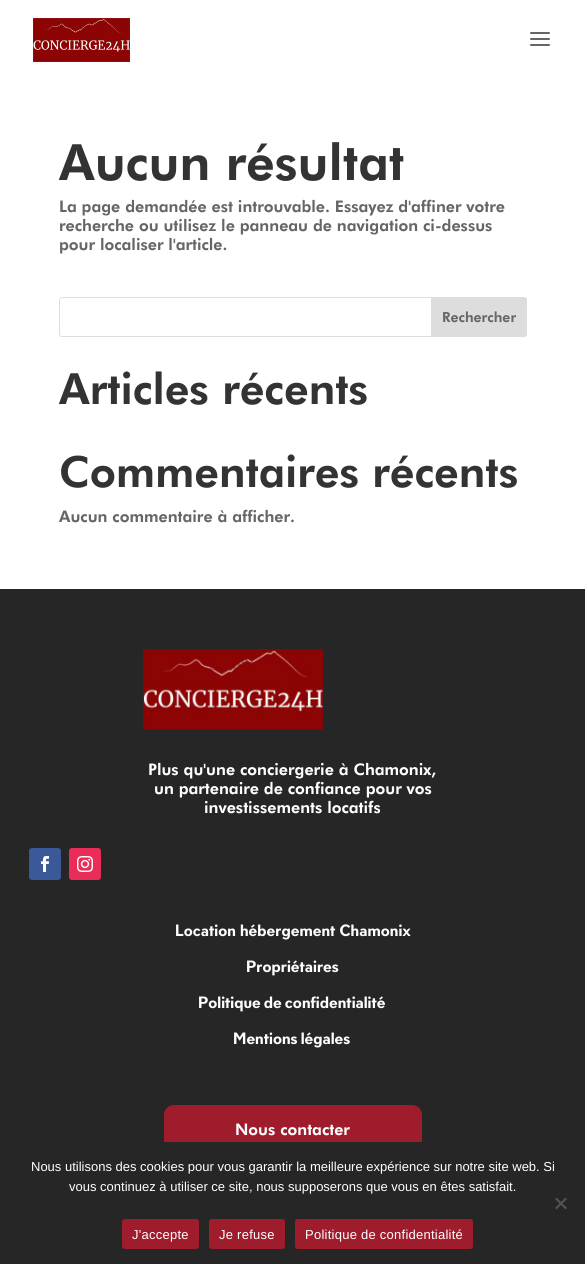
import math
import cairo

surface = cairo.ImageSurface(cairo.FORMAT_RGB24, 585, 1264)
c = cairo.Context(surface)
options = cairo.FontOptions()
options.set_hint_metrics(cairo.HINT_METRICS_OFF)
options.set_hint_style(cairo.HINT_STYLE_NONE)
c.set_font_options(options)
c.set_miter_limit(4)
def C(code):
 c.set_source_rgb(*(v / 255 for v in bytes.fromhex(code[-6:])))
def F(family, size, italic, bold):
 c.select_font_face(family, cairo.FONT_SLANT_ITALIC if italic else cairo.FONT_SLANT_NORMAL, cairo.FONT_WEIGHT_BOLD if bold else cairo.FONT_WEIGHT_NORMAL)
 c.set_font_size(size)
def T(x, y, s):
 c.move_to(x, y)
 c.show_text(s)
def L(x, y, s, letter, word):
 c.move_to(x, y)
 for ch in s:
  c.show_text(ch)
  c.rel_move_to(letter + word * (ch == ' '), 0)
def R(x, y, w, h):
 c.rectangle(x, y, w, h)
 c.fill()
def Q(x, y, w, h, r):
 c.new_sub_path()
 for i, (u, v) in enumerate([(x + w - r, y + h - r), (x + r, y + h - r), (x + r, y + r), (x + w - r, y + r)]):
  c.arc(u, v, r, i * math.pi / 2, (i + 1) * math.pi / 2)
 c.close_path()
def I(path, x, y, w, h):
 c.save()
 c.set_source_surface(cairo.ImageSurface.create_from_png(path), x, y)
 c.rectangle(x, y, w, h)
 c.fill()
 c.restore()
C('ffffff')
c.paint()
I('1.png',33,18,97,44)
I('2.png',530,32,20,14)
F('Futura Black',50,0,0)
C('333333')
T(59,180,'Aucun résultat')
F('Futura Black',16,0,0)
C('666666')
T(59,212,'La page demandée est introuvable. Essayez d\'affiner votre')
T(59,231,'recherche ou utilisez le panneau de navigation ci-dessus')
T(59,250,'pour localiser l\'article.')
Q(59.5,297.5,467,39,2.5)
C('dddddd')
c.set_line_width(1)
c.stroke()
c.new_path()
c.move_to(431.5,297.5)
c.line_to(524,297.5)
c.curve_to(525.5,297.5,526.5,298.5,526.5,300)
c.line_to(526.5,334)
c.curve_to(526.5,335.5,525.5,336.5,524,336.5)
c.line_to(431.5,336.5)
c.close_path()
c.fill_preserve()
c.stroke()
F('Futura Black',14,0,0)
C('666666')
T(442,322,'Rechercher')
F('Futura Black',43,0,0)
C('333333')
T(59,404,'Articles récents')
T(59,487,'Commentaires récents')
F('Futura Black',16,0,0)
C('666666')
T(59,522,'Aucun commentaire à afficher.')
C('262626')
R(0,589,585,553)
I('3.png',143,649,180,81)
C('ffffff')
T(148,775,'Plus qu\'une conciergerie à Chamonix,')
T(154,794,'un partenaire de confiance pour vos')
T(204,813,'investissements locatifs')
C('3b5998')
Q(29,848,32,32,3)
c.fill()
I('4.png',41,856,8,16)
C('ea2c59')
Q(69,848,32,32,3)
c.fill()
I('5.png',77,856,16,16)
F('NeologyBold',16,0,1)
C('ffffff')
T(175,936,'Location hébergement Chamonix')
T(246,972,'Propriétaires')
L(198,1008,'Politique de confidentialité',0,-1)
L(233,1044,'Mentions légales',0,-1)
C('9f1c2c')
Q(164,1105,258,50,10)
c.fill()
F('Futura Black',16,0,0)
C('ffffff')
T(235,1135,'Nous contacter')
C('262626')
R(0,1142,585,122)
F('Liberation Sans',13,0,0)
C('ffffff')
T(31,1171,'Nous utilisons des cookies pour vous garantir la meilleure expérience sur notre site web. Si')
T(69,1191,'vous continuez à utiliser ce site, nous supposerons que vous en êtes satisfait.')
C('535353')
c.new_path()
c.move_to(565.5,1197.5)
c.line_to(567,1199)
c.line_to(556.5,1209.5)
c.line_to(555,1208)
c.close_path()
c.fill()
c.new_path()
c.move_to(555,1199)
c.line_to(556.5,1197.5)
c.line_to(567,1208)
c.line_to(565.5,1209.5)
c.close_path()
c.fill()
C('9f1c2c')
Q(122,1219,77,30,3)
c.fill()
C('ffffff')
L(132,1239,'J\'accepte',.25,0)
C('9f1c2c')
Q(209,1219,76,30,3)
c.fill()
C('ffffff')
L(219,1239,'Je refuse',.25,0)
C('9f1c2c')
Q(295,1219,178,30,3)
c.fill()
C('ffffff')
L(305,1239,'Politique de confidentialité',.25,0)
surface.write_to_png('o.png')
